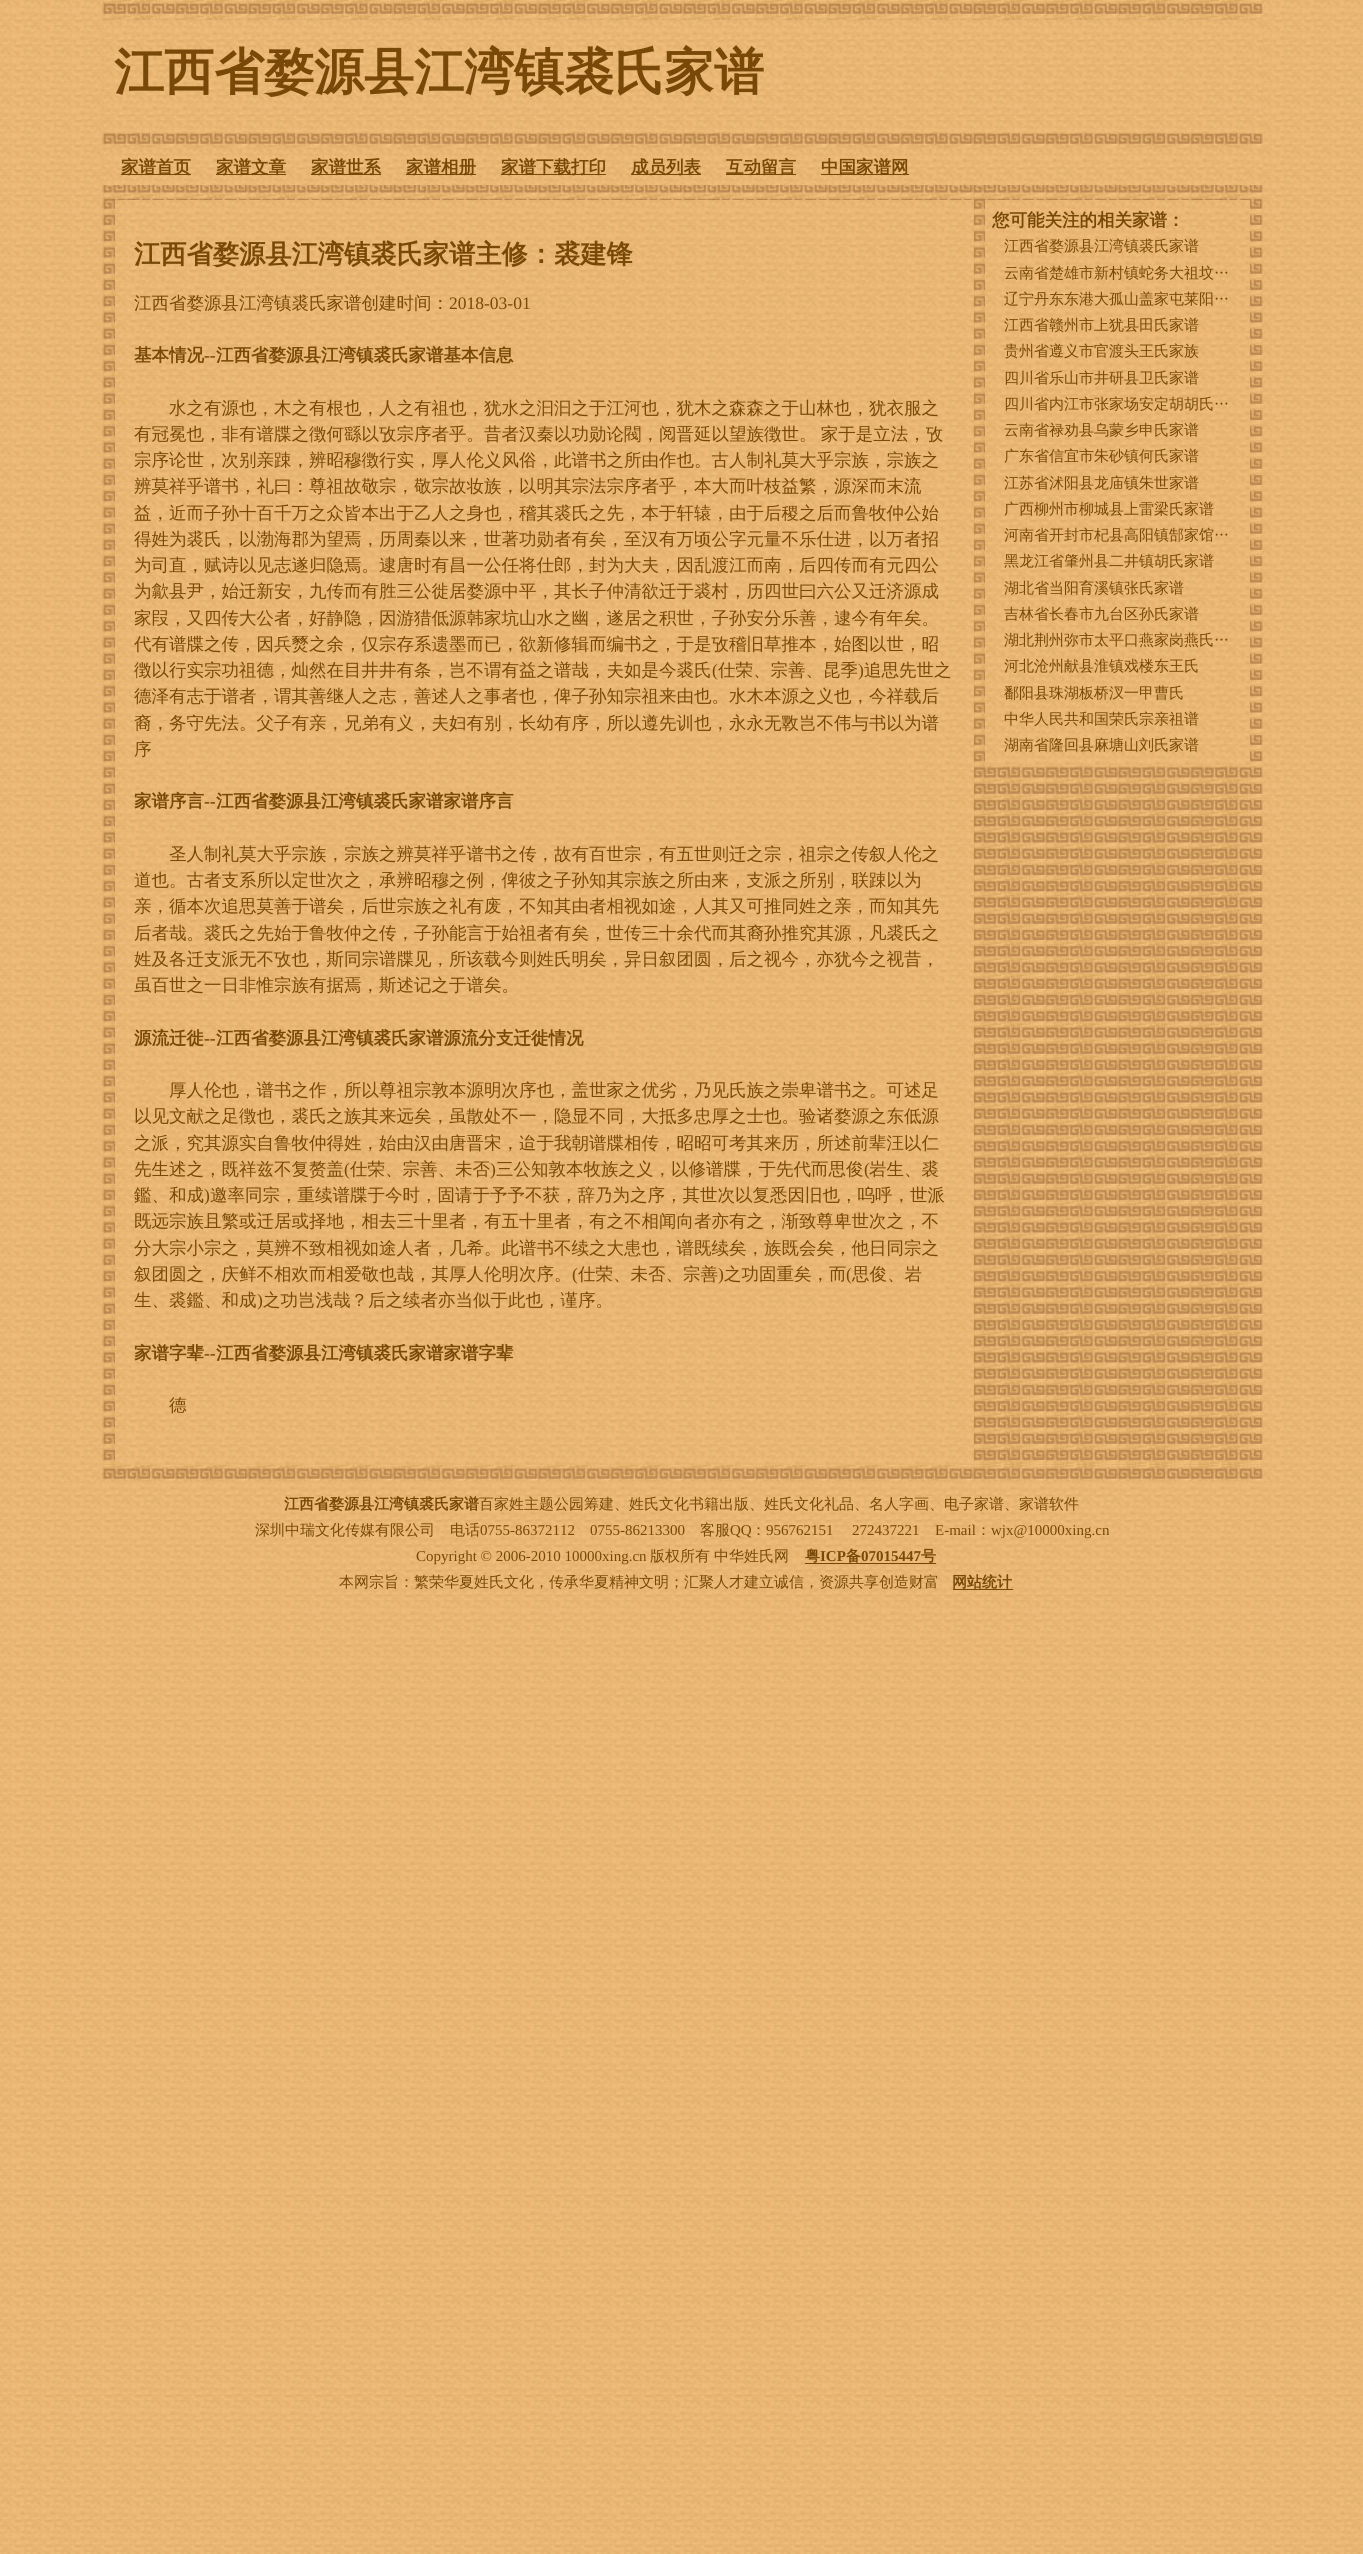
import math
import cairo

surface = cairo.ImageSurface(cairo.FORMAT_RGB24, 1363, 2554)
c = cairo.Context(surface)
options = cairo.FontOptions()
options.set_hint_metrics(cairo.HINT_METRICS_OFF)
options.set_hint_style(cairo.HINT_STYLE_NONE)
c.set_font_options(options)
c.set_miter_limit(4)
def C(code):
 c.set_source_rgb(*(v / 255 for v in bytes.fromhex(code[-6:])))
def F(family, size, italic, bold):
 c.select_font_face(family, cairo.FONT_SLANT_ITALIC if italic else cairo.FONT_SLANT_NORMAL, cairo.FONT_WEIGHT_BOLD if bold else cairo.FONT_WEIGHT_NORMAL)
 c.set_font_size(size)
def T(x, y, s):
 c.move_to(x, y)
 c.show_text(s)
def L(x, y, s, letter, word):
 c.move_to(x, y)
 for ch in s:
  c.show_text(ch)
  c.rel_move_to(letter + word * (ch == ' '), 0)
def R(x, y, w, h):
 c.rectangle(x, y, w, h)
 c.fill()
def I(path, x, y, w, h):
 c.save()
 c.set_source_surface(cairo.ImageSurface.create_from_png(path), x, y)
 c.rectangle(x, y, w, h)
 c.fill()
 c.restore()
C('ffffff')
c.paint()
I('1.png',0,0,1363,2554)
I('2.png',102,0,1161,1465)
I('3.png',102,20,1161,113)
F('WenQuanYi Zen Hei',50,0,1)
C('774807')
T(114,89,'江西省婺源县江湾镇裘氏家谱')
I('4.png',102,147,1161,38)
R(121,174,70,1)
F('WenQuanYi Zen Hei',17.5,0,1)
T(121,173,'家谱首页')
R(216,174,70,1)
T(216,173,'家谱文章')
R(311,174,70,1)
T(311,173,'家谱世系')
R(406,174,70,1)
T(406,173,'家谱相册')
R(501,174,105,1)
T(501,173,'家谱下载打印')
R(631,174,70,1)
T(631,173,'成员列表')
R(726,174,70,1)
T(726,173,'互动留言')
R(821,174,88,1)
T(821,173,'中国家谱网')
I('5.png',115,200,859,1265)
F('WenQuanYi Zen Hei',26.25,0,1)
T(134,263,'江西省婺源县江湾镇裘氏家谱主修：裘建锋')
F('WenQuanYi Zen Hei Medium',17.5,0,0)
T(134,309,'江西省婺源县江湾镇裘氏家谱创建时间：')
F('Liberation Serif',17.5,0,0)
T(449,309,'2018-03-01')
F('WenQuanYi Zen Hei',17.5,0,1)
T(134,361,'基本情况')
F('Liberation Serif',17.5,0,1)
T(204,361,'--')
F('WenQuanYi Zen Hei',17.5,0,1)
T(216,361,'江西省婺源县江湾镇裘氏家谱基本信息')
F('WenQuanYi Zen Hei Medium',17.5,0,0)
T(169,414,'水之有源也，木之有根也，人之有祖也，犹水之汩汩之于江河也，犹木之森森之于山林也，犹衣服之')
L(134,440,'有冠冕也，非有谱牒之徴何繇以攷宗序者乎。昔者汉秦以功勋论閥，阅晋延以望族徴世。 家于是立法，攷',0,-1)
T(134,466,'宗序论世，次别亲踈，辨昭穆徴行实，厚人伦义风俗，此谱书之所由作也。古人制礼莫大乎宗族，宗族之')
T(134,492,'辨莫祥乎谱书，礼曰：尊祖故敬宗，敬宗故妆族，以明其宗法宗序者乎，本大而叶枝益繁，源深而末流')
T(134,519,'益，近而子孙十百千万之众皆本出于乙人之身也，稽其裘氏之先，本于轩辕，由于后稷之后而鲁牧仲公始')
T(134,545,'得姓为裘氏，以渤海郡为望焉，历周秦以来，世著功勋者有矣，至汉有万顷公字元量不乐仕进，以万者招')
T(134,571,'为司直，赋诗以见志遂归隐焉。逮唐时有昌一公任将仕郎，封为大夫，因乱渡江而南，后四传而有元四公')
T(134,597,'为歙县尹，始迁新安，九传而有胜三公徙居婺源中平，其长子仲清欲迁于裘村，历四世曰六公又迁济源成')
T(134,624,'家叚，又四传大公者，好静隐，因游猎低源韩家坑山水之幽，遂居之积世，子孙安分乐善，逮今有年矣。')
T(134,650,'代有谱牒之传，因兵燹之余，仅宗存系遗墨而已，欲新修辑而编书之，于是攷稽旧草推本，始图以世，昭')
T(134,676,'徴以行实宗功祖德，灿然在目井井有条，岂不谓有益之谱哉，夫如是今裘氏')
F('Liberation Serif',17.5,0,0)
T(712,676,'(')
F('WenQuanYi Zen Hei Medium',17.5,0,0)
T(718,676,'仕荣、宗善、昆季')
F('Liberation Serif',17.5,0,0)
T(858,676,')')
F('WenQuanYi Zen Hei Medium',17.5,0,0)
T(864,676,'追思先世之')
T(134,702,'德泽有志于谱者，谓其善继人之志，善述人之事者也，俾子孙知宗祖来由也。水木本源之义也，今祥载后')
T(134,729,'裔，务守先法。父子有亲，兄弟有义，夫妇有别，长幼有序，所以遵先训也，永永无斁岂不伟与书以为谱')
T(134,755,'序')
F('WenQuanYi Zen Hei',17.5,0,1)
T(134,807,'家谱序言')
F('Liberation Serif',17.5,0,1)
T(204,807,'--')
F('WenQuanYi Zen Hei',17.5,0,1)
T(216,807,'江西省婺源县江湾镇裘氏家谱家谱序言')
F('WenQuanYi Zen Hei Medium',17.5,0,0)
T(169,860,'圣人制礼莫大乎宗族，宗族之辨莫祥乎谱书之传，故有百世宗，有五世则迁之宗，祖宗之传叙人伦之')
T(134,886,'道也。古者支系所以定世次之，承辨昭穆之例，俾彼之子孙知其宗族之所由来，支派之所别，联踈以为')
T(134,912,'亲，循本次追思莫善于谱矣，后世宗族之礼有废，不知其由者相视如途，人其又可推同姓之亲，而知其先')
T(134,939,'后者哉。裘氏之先始于鲁牧仲之传，子孙能言于始祖者有矣，世传三十余代而其裔孙推究其源，凡裘氏之')
T(134,965,'姓及各迁支派无不攷也，斯同宗谱牒见，所该载今则姓氏明矣，异日叙团圆，后之视今，亦犹今之视昔，')
T(134,991,'虽百世之一日非惟宗族有据焉，斯述记之于谱矣。')
F('WenQuanYi Zen Hei',17.5,0,1)
T(134,1044,'源流迁徙')
F('Liberation Serif',17.5,0,1)
T(204,1044,'--')
F('WenQuanYi Zen Hei',17.5,0,1)
T(216,1044,'江西省婺源县江湾镇裘氏家谱源流分支迁徙情况')
F('WenQuanYi Zen Hei Medium',17.5,0,0)
T(169,1096,'厚人伦也，谱书之作，所以尊祖宗敦本源明次序也，盖世家之优劣，乃见氏族之崇卑谱书之。可述足')
T(134,1122,'以见文献之足徴也，裘氏之族其来远矣，虽散处不一，隐显不同，大抵多忠厚之士也。验诸婺源之东低源')
T(134,1149,'之派，究其源实自鲁牧仲得姓，始由汉由唐晋宋，迨于我朝谱牒相传，昭昭可考其来历，所述前辈汪以仁')
T(134,1175,'先生述之，既祥兹不复赘盖')
F('Liberation Serif',17.5,0,0)
T(344,1175,'(')
F('WenQuanYi Zen Hei Medium',17.5,0,0)
T(350,1175,'仕荣、宗善、未否')
F('Liberation Serif',17.5,0,0)
T(490,1175,')')
F('WenQuanYi Zen Hei Medium',17.5,0,0)
T(496,1175,'三公知敦本牧族之义，以修谱牒，于先代而思俊')
F('Liberation Serif',17.5,0,0)
T(864,1175,'(')
F('WenQuanYi Zen Hei Medium',17.5,0,0)
T(869,1175,'岩生、裘')
T(134,1201,'鑑、和成')
F('Liberation Serif',17.5,0,0)
T(204,1201,')')
F('WenQuanYi Zen Hei Medium',17.5,0,0)
T(210,1201,'邀率同宗，重续谱牒于今时，固请于予予不获，辞乃为之序，其世次以复悉因旧也，呜呼，世派')
T(134,1227,'既远宗族且繁或迁居或择地，相去三十里者，有五十里者，有之不相闻向者亦有之，渐致尊卑世次之，不')
T(134,1254,'分大宗小宗之，莫辨不致相视如途人者，几希。此谱书不续之大患也，谱既续矣，族既会矣，他日同宗之')
T(134,1280,'叙团圆之，庆鲜不相欢而相爱敬也哉，其厚人伦明次序。')
F('Liberation Serif',17.5,0,0)
T(572,1280,'(')
F('WenQuanYi Zen Hei Medium',17.5,0,0)
T(578,1280,'仕荣、未否、宗善')
F('Liberation Serif',17.5,0,0)
T(718,1280,')')
F('WenQuanYi Zen Hei Medium',17.5,0,0)
T(724,1280,'之功固重矣，而')
F('Liberation Serif',17.5,0,0)
T(846,1280,'(')
F('WenQuanYi Zen Hei Medium',17.5,0,0)
T(852,1280,'思俊、岩')
T(134,1306,'生、裘鑑、和成')
F('Liberation Serif',17.5,0,0)
T(257,1306,')')
F('WenQuanYi Zen Hei Medium',17.5,0,0)
T(263,1306,'之功岂浅哉？后之续者亦当似于此也，谨序。')
F('WenQuanYi Zen Hei',17.5,0,1)
T(134,1359,'家谱字辈')
F('Liberation Serif',17.5,0,1)
T(204,1359,'--')
F('WenQuanYi Zen Hei',17.5,0,1)
T(216,1359,'江西省婺源县江湾镇裘氏家谱家谱字辈')
F('WenQuanYi Zen Hei Medium',17.5,0,0)
T(169,1411,'德')
I('6.png',985,200,265,567)
F('WenQuanYi Zen Hei',17.5,0,1)
T(992,226,'您可能关注的相关家谱：')
F('WenQuanYi Zen Hei Medium',15,0,0)
T(1004,251,'江西省婺源县江湾镇裘氏家谱')
T(1004,278,'云南省楚雄市新村镇蛇务大祖坟…')
T(1004,304,'辽宁丹东东港大孤山盖家屯莱阳…')
T(1004,330,'江西省赣州市上犹县田氏家谱')
T(1004,356,'贵州省遵义市官渡头王氏家族')
T(1004,383,'四川省乐山市井研县卫氏家谱')
T(1004,409,'四川省内江市张家场安定胡胡氏…')
T(1004,435,'云南省禄劝县乌蒙乡申氏家谱')
T(1004,461,'广东省信宜市朱砂镇何氏家谱')
T(1004,488,'江苏省沭阳县龙庙镇朱世家谱')
T(1004,514,'广西柳州市柳城县上雷梁氏家谱')
T(1004,540,'河南省开封市杞县高阳镇郜家馆…')
T(1004,566,'黑龙江省肇州县二井镇胡氏家谱')
T(1004,593,'湖北省当阳育溪镇张氏家谱')
T(1004,619,'吉林省长春市九台区孙氏家谱')
T(1004,645,'湖北荆州弥市太平口燕家岗燕氏…')
T(1004,671,'河北沧州献县淮镇戏楼东王氏')
T(1004,698,'鄱阳县珠湖板桥汊一甲曹氏')
T(1004,724,'中华人民共和国荣氏宗亲祖谱')
T(1004,750,'湖南省隆回县麻塘山刘氏家谱')
I('7.png',102,1465,1161,17)
F('WenQuanYi Zen Hei',15,0,1)
T(284,1509,'江西省婺源县江湾镇裘氏家谱')
F('WenQuanYi Zen Hei Medium',15,0,0)
T(479,1509,'百家姓主题公园筹建、姓氏文化书籍出版、姓氏文化礼品、名人字画、电子家谱、家谱软件')
T(255,1535,'深圳中瑞文化传媒有限公司　电话')
F('Liberation Serif',15,0,0)
T(480,1535,'0755-86372112')
T(590,1535,'0755-86213300')
F('WenQuanYi Zen Hei Medium',15,0,0)
T(700,1535,'客服')
F('Liberation Serif',15,0,0)
T(730,1535,'QQ')
F('WenQuanYi Zen Hei Medium',15,0,0)
T(751,1535,'：')
F('Liberation Serif',15,0,0)
T(766,1535,'956762151')
T(852,1535,'272437221')
T(935,1535,'E-mail')
F('WenQuanYi Zen Hei Medium',15,0,0)
T(976,1535,'：')
F('Liberation Serif',15,0,0)
T(991,1535,'wjx@10000xing.cn')
T(416,1561,'Copyright © 2006-2010 10000xing.cn')
F('WenQuanYi Zen Hei Medium',15,0,0)
T(650,1561,'版权所有')
T(714,1561,'中华姓氏网')
F('WenQuanYi Zen Hei',15,0,1)
T(805,1561,'粤')
F('Liberation Serif',15,0,1)
T(820,1561,'ICP')
R(805,1563,131,1)
F('WenQuanYi Zen Hei',15,0,1)
T(846,1561,'备')
F('Liberation Serif',15,0,1)
T(861,1561,'07015447')
F('WenQuanYi Zen Hei',15,0,1)
T(921,1561,'号')
F('WenQuanYi Zen Hei Medium',15,0,0)
T(339,1587,'本网宗旨：繁荣华夏姓氏文化，传承华夏精神文明；汇聚人才建立诚信，资源共享创造财富')
F('WenQuanYi Zen Hei',15,0,1)
T(952,1587,'网站统计')
R(953,1589,60,1)
surface.write_to_png('o.png')
